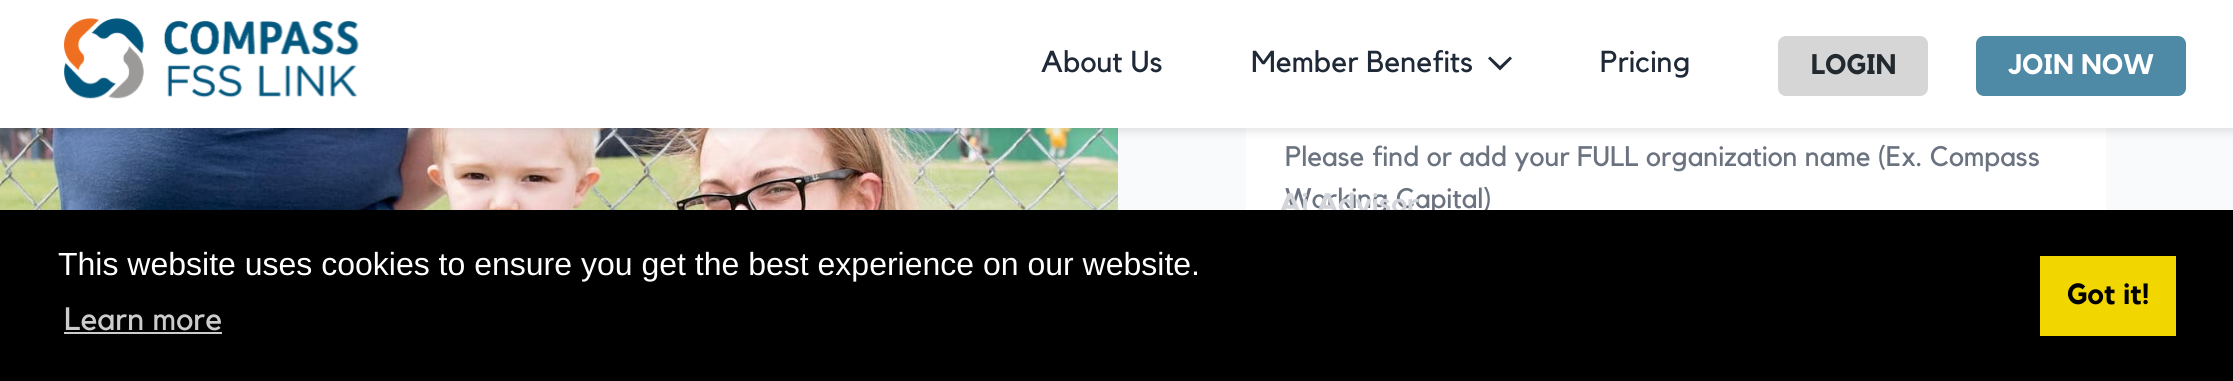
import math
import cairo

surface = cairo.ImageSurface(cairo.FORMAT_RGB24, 2233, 381)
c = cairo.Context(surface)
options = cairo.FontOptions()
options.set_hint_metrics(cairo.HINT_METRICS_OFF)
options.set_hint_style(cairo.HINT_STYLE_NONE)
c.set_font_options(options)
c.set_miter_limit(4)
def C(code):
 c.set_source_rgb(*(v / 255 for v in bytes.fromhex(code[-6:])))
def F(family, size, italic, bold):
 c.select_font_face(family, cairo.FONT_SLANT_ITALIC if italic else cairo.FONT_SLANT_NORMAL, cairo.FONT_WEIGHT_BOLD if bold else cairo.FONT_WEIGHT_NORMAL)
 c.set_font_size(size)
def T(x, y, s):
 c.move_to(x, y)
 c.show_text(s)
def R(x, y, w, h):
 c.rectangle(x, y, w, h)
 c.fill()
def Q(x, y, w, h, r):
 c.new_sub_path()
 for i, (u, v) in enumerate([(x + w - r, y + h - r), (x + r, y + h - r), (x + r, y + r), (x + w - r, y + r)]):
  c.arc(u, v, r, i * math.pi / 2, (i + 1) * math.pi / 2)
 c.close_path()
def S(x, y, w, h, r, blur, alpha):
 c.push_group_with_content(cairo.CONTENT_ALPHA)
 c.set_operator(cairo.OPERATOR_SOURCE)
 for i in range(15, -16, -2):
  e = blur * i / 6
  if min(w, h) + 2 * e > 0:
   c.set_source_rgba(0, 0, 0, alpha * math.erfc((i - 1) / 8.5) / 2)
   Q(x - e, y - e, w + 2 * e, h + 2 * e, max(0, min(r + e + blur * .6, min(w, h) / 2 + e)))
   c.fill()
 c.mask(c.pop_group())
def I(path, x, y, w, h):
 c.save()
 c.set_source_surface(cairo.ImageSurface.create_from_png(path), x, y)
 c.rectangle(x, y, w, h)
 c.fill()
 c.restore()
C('f9fafb')
c.paint()
I('2.png',0,128,1118,82)
C('ffffff')
R(1246,128,860,82)
C('000000')
S(0,4,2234,128,0,4,.1)
C('ffffff')
R(0,0,2233,128)
I('1.png',64,18,295,81)
F('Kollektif',30,0,0)
C('1f2937')
T(1041,72,'About Us')
T(1251,72,'Member Benefits')
c.new_path()
c.move_to(1490,56.5)
c.line_to(1488,58.5)
c.line_to(1500,70.5)
c.line_to(1512,58.5)
c.line_to(1510,56.5)
c.line_to(1500,66)
c.close_path()
c.fill()
F('Kollektif',28,0,0)
C('6b7280')
T(1285,208,'Working Capital)')
F('Kollektif',28,0,1)
C('d3d5da')
T(1279,213,'Ai Advisor')
F('Kollektif',30,0,0)
C('1f2937')
T(1600,72,'Pricing')
C('d7d6d6')
Q(1778,36,150,60,8)
c.fill()
F('Kollektif',28,0,1)
C('22292f')
T(1811,74,'LOGIN')
C('4e89a5')
Q(1976,36,210,60,8)
c.fill()
C('ffffff')
T(2008,74,'JOIN NOW')
F('Kollektif',28,0,0)
C('6b7280')
T(1285,166,'Please find or add your FULL organization name (Ex. Compass')
C('000000')
R(0,210,2233,171)
F('Liberation Sans',32,0,0)
C('ffffff')
T(58,275,'This website uses cookies to ensure you get the best experience on our website.')
F('Kollektif',32,0,0)
C('cccccc')
T(64,330,'Learn more')
R(64,332,158,2)
C('f1d600')
R(2040,256,136,80)
F('Kollektif',29,0,1)
C('000000')
T(2067,304,'Got it!')
surface.write_to_png('o.png')
